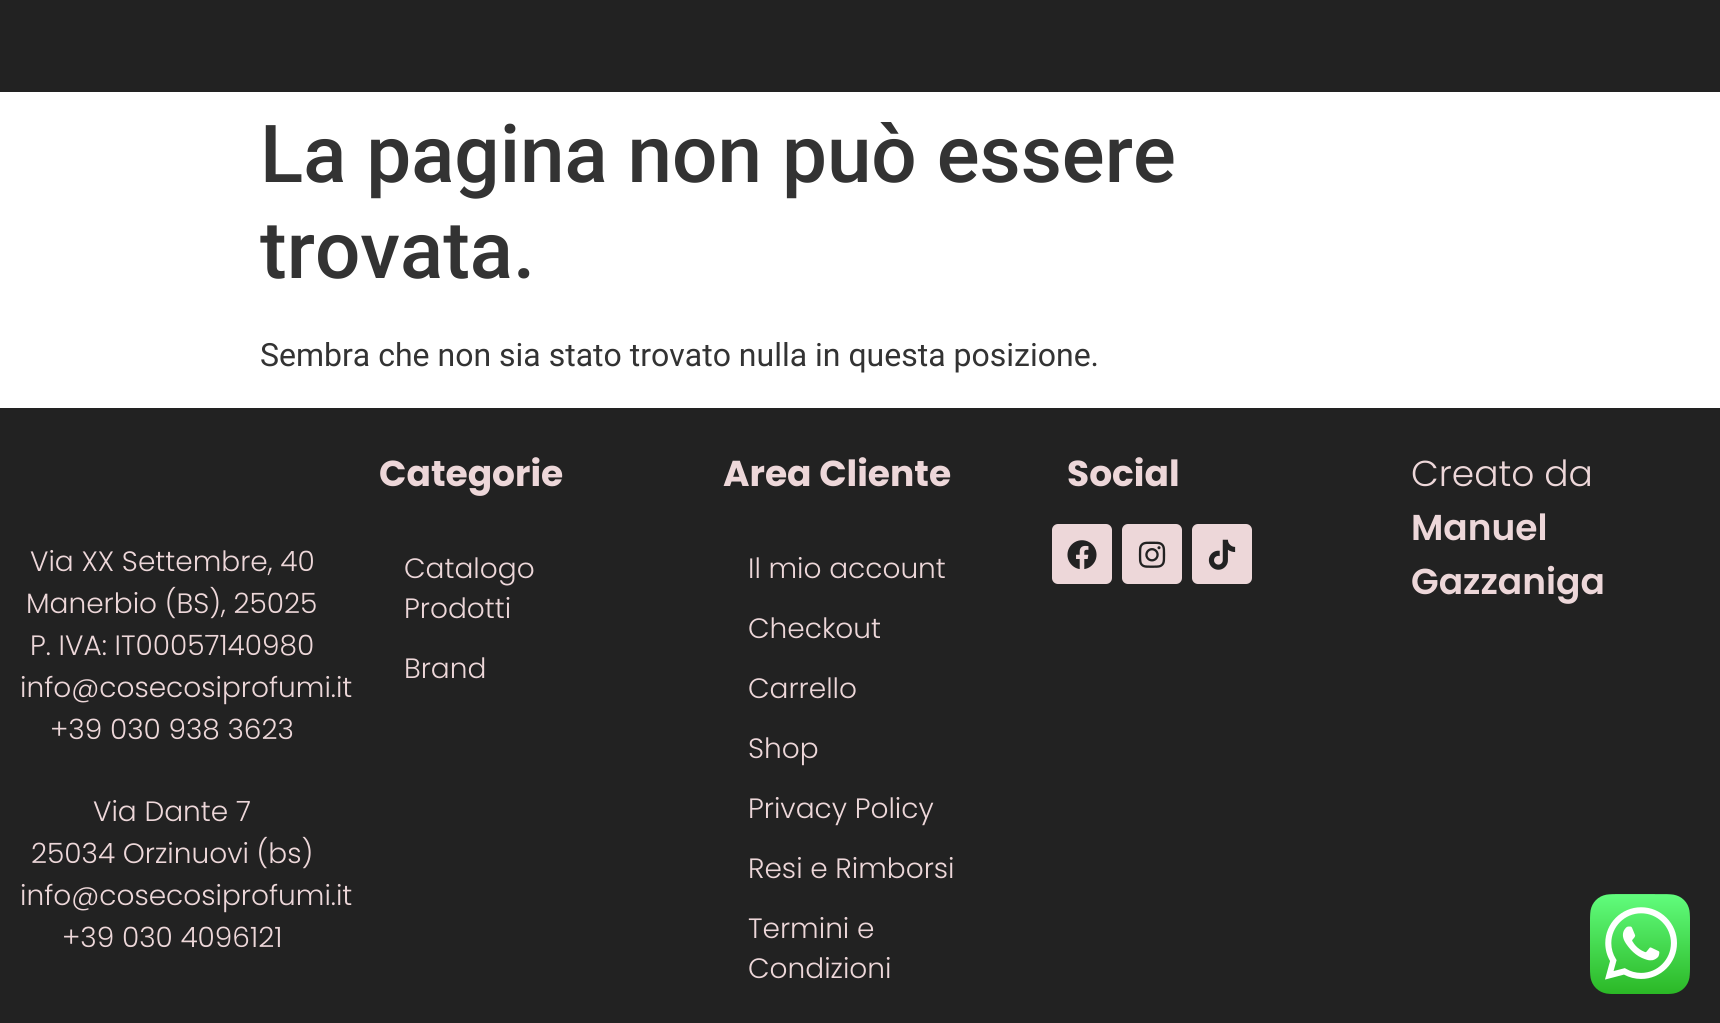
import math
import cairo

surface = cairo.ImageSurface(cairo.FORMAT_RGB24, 1720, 1023)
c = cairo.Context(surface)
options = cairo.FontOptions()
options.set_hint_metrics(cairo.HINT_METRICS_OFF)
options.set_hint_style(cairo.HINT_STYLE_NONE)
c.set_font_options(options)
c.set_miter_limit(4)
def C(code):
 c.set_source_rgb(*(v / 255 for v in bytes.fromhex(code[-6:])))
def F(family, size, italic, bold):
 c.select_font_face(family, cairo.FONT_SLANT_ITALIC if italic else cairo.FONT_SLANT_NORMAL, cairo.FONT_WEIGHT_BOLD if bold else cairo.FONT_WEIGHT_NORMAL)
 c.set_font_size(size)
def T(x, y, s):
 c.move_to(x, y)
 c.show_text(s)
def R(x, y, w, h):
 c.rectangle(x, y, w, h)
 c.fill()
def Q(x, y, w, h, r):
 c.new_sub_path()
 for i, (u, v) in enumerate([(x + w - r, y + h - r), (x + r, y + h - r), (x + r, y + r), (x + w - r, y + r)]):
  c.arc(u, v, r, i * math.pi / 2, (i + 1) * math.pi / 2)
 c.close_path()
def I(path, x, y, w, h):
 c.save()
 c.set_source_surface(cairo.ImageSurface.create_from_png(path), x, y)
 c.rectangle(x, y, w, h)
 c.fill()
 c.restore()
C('ffffff')
c.paint()
C('222222')
R(0,0,1720,92)
F('Roboto Medium',80,0,0)
C('333333')
T(260,182,'La pagina non può essere')
T(260,278,'trovata.')
F('Roboto',32,0,0)
T(260,366,'Sembra che non sia stato trovato nulla in questa posizione.')
C('222222')
R(0,408,1720,615)
F('Poppins',36,0,1)
C('edd7d9')
T(379,486,'Categorie')
F('Poppins Light',28,0,0)
T(404,578,'Catalogo')
T(404,618,'Prodotti')
T(404,678,'Brand')
F('Poppins',36,0,1)
T(723,486,'Area Cliente')
F('Poppins Light',28,0,0)
T(748,578,'Il mio account')
T(748,638,'Checkout')
T(748,698,'Carrello')
T(748,758,'Shop')
T(748,818,'Privacy Policy')
T(748,878,'Resi e Rimborsi')
T(748,938,'Termini e')
T(748,978,'Condizioni')
F('Poppins',36,0,1)
T(1067,486,'Social')
Q(1052,524,60,60,6)
c.fill()
I('1.png',1067,540,30,30)
Q(1122,524,60,60,6)
c.fill()
I('2.png',1138,541,28,27)
Q(1192,524,60,60,6)
c.fill()
I('3.png',1208,539,28,31)
F('Poppins Light',36,0,0)
T(1411,486,'Creato da')
F('Poppins SemiBold',36,0,0)
T(1411,540,'Manuel')
T(1411,594,'Gazzaniga')
F('Poppins Light',28,0,0)
T(30,571,'Via XX Settembre, 40')
T(26,613,'Manerbio (BS), 25025')
T(30,655,'P. IVA: IT00057140980')
T(20,697,'info@cosecosiprofumi.it')
T(50,739,'+39 030 938 3623')
T(93,821,'Via Dante 7')
T(31,863,'25034 Orzinuovi (bs)')
T(20,905,'info@cosecosiprofumi.it')
T(62,947,'+39 030 4096121')
I('4.png',1590,894,100,100)
surface.write_to_png('o.png')
